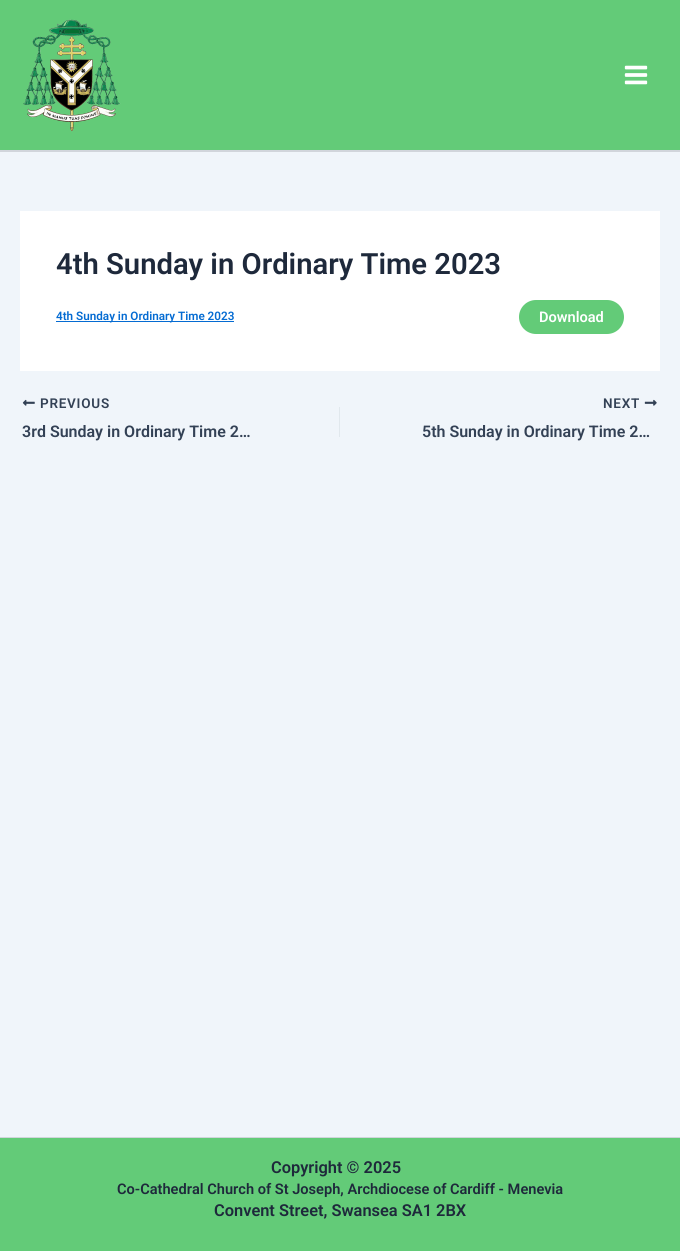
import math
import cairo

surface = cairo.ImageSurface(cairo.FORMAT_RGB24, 680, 1251)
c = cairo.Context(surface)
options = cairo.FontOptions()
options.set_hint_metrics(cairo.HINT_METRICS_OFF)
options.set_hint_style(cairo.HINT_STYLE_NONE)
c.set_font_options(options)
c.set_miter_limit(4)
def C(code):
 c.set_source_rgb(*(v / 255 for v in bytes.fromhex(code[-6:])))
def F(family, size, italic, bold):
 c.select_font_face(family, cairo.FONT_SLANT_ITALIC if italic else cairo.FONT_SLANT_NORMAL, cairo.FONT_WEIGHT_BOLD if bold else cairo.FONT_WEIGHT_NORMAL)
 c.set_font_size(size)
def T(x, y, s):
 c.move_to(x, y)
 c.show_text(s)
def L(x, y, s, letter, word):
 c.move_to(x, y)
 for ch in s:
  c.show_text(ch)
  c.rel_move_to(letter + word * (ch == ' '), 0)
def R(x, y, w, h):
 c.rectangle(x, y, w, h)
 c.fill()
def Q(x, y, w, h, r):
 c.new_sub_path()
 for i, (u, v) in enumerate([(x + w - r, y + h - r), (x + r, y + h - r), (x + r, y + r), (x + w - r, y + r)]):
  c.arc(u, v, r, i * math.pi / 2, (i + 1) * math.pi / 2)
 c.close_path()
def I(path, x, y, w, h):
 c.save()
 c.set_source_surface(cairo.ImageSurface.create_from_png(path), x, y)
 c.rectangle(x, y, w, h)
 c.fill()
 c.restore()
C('f0f5fa')
c.paint()
C('63cb78')
R(0,0,680,150)
C('d1d5db')
R(0,150,680,2)
I('1.png',23,19,98,113)
I('2.png',624,65,24,20)
C('ffffff')
R(20,211,640,160)
F('Roboto SemiBold',29.2,0,0)
C('1e293b')
T(56,274,'4th Sunday in Ordinary Time 2023')
C('046bd2')
R(56,321,178,1)
F('Roboto SemiBold',11.7,0,0)
T(56,320,'4th Sunday in Ordinary Time 2023')
C('63cb78')
Q(519,300,105,34,17)
c.fill()
F('Roboto SemiBold',14.6,0,0)
C('ffffff')
T(539,322,'Download')
I('3.png',22,399,13,7)
F('Roboto SemiBold',13.5,0,0)
C('334155')
L(40,408,'PREVIOUS',.75,0)
F('Roboto SemiBold',16,0,0)
T(22,437,'3rd Sunday in Ordinary Time 2…')
C('e1e8ed')
R(339,407,1,30)
F('Roboto SemiBold',13.5,0,0)
C('334155')
L(603,408,'NEXT',.75,0)
I('4.png',644,399,13,7)
F('Roboto SemiBold',16,0,0)
T(422,437,'5th Sunday in Ordinary Time 2…')
C('63cb78')
R(0,1138,680,113)
C('d1d5db')
R(0,1137,680,1)
F('Roboto SemiBold',16.4,0,0)
C('1e293b')
T(271,1173,'Copyright © 2025')
F('Roboto SemiBold',14.6,0,0)
T(117,1194,'Co-Cathedral Church of St Joseph, Archdiocese of Cardiff - Menevia')
F('Roboto SemiBold',16.4,0,0)
T(214,1216,'Convent Street, Swansea SA1 2BX')
surface.write_to_png('o.png')
